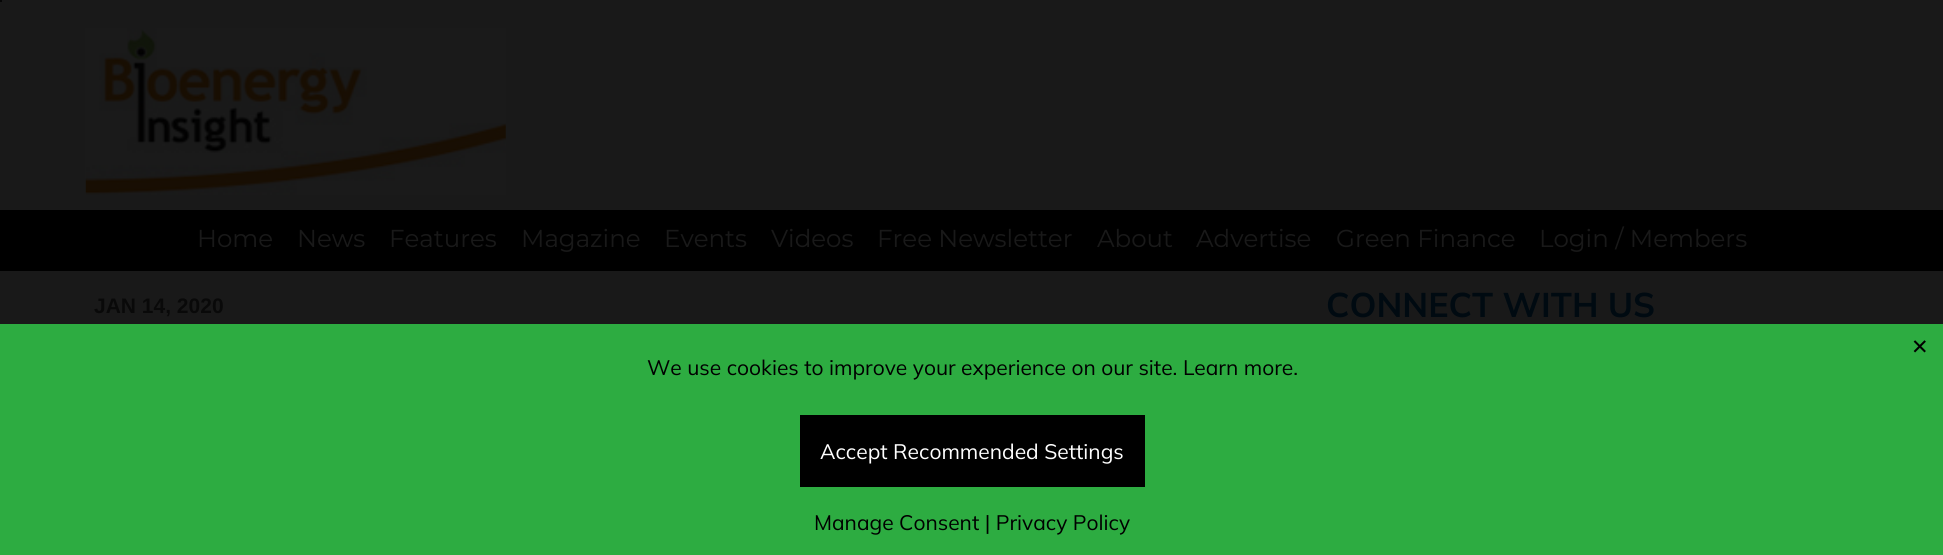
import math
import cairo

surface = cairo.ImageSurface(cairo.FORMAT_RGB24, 1943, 555)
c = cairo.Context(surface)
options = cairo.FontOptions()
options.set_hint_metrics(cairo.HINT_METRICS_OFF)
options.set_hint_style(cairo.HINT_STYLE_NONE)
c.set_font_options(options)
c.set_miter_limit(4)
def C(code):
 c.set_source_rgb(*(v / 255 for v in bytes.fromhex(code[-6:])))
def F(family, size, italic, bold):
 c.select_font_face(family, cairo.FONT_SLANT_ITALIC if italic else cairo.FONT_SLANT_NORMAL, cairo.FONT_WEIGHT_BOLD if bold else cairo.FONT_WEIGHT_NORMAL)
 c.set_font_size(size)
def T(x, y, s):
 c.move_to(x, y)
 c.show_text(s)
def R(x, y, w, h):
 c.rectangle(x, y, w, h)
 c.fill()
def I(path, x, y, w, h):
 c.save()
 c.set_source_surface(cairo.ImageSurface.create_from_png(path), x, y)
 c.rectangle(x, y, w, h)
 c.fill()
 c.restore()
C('191919')
c.paint()
C('060606')
R(0,0,2,2)
I('1.png',85,28,421,167)
C('000000')
R(0,210,1943,61)
F('Montserrat',24.5,0,0)
C('191919')
T(197,247,'Home')
T(297,247,'News')
T(389,247,'Features')
T(521,247,'Magazine')
T(664,247,'Events')
T(771,247,'Videos')
T(877,247,'Free Newsletter')
T(1097,247,'About')
T(1196,247,'Advertise')
T(1336,247,'Green Finance')
T(1539,247,'Login / Members')
F('Liberation Sans',21,0,1)
C('090909')
T(94,313,'JAN 14, 2020')
F('Mulish',34.25,0,1)
C('000a11')
T(1326,317,'CONNECT WITH US')
C('2dac41')
R(0,324,1943,231)
F('DejaVu Sans',21,0,0)
C('000000')
T(1911,354,'✕')
F('Mulish',21,0,0)
T(647,375,'We use cookies to improve your experience on our site. Learn more.')
R(800,415,345,72)
C('ffffff')
T(820,459,'Accept Recommended Settings')
C('000000')
T(814,530,'Manage Consent | Privacy Policy')
surface.write_to_png('o.png')
